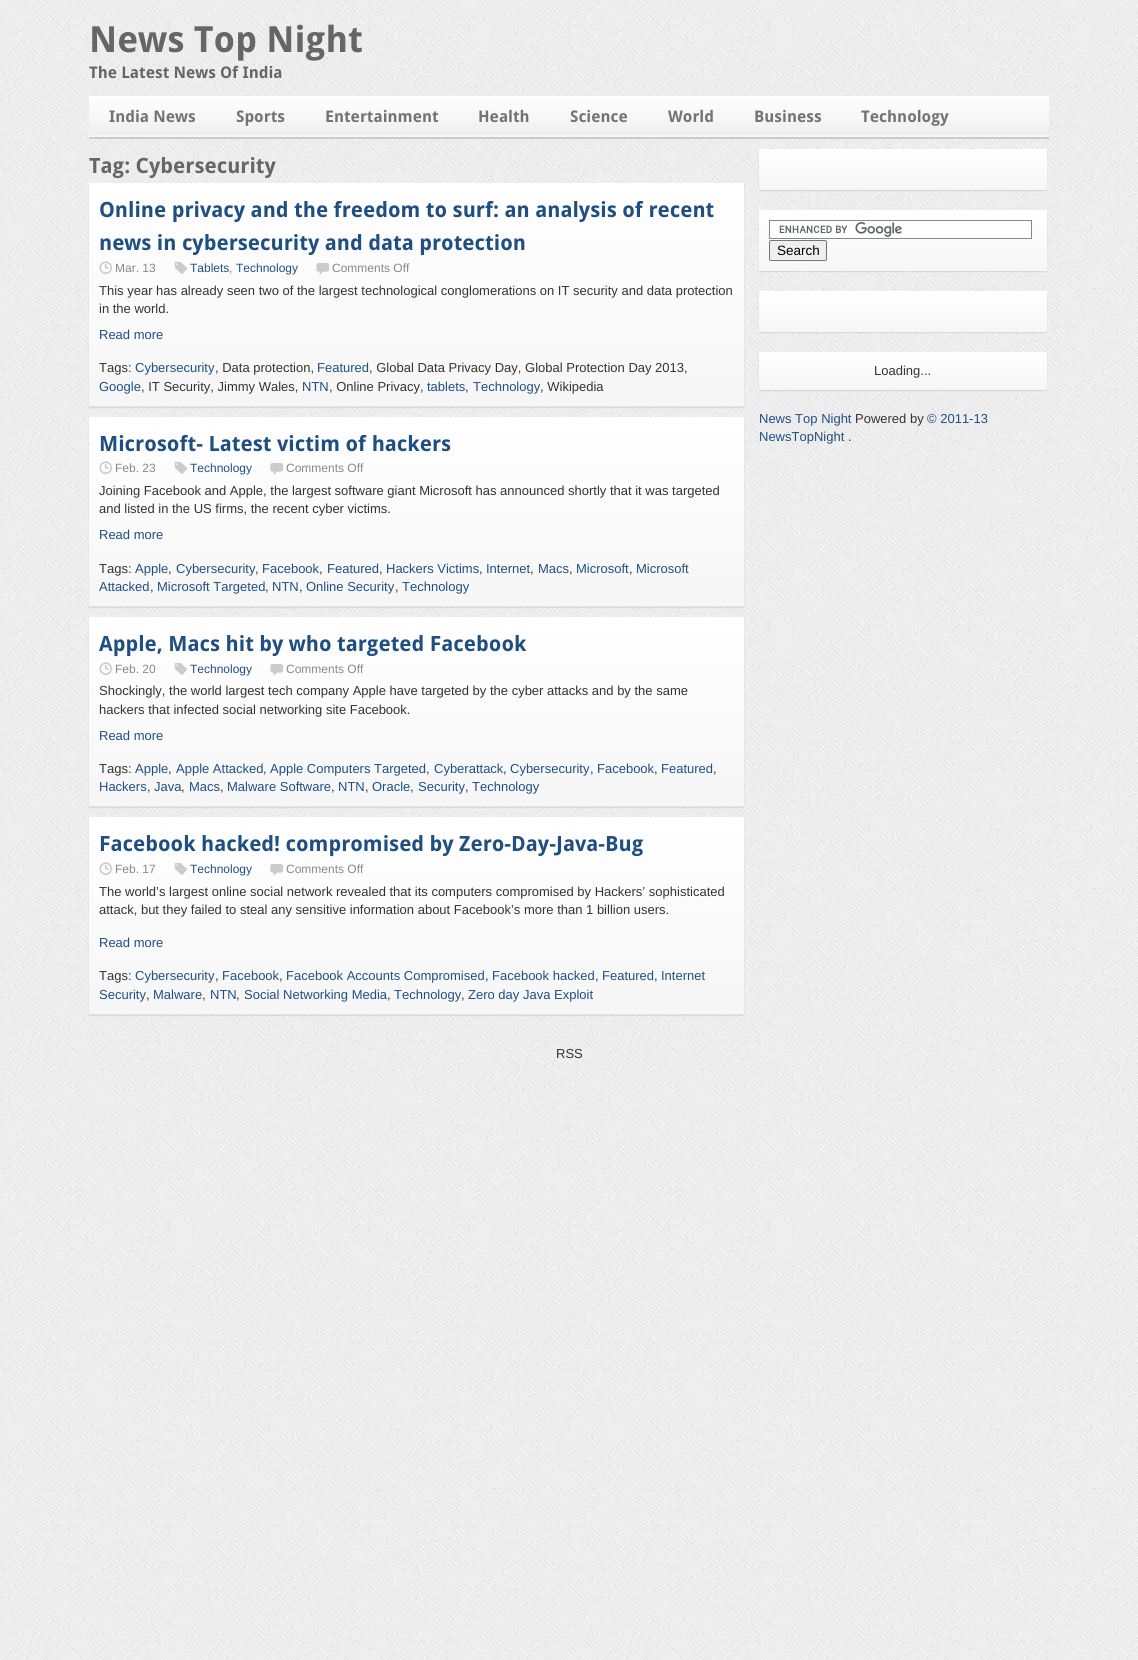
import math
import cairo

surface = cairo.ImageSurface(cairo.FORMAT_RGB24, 1138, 1660)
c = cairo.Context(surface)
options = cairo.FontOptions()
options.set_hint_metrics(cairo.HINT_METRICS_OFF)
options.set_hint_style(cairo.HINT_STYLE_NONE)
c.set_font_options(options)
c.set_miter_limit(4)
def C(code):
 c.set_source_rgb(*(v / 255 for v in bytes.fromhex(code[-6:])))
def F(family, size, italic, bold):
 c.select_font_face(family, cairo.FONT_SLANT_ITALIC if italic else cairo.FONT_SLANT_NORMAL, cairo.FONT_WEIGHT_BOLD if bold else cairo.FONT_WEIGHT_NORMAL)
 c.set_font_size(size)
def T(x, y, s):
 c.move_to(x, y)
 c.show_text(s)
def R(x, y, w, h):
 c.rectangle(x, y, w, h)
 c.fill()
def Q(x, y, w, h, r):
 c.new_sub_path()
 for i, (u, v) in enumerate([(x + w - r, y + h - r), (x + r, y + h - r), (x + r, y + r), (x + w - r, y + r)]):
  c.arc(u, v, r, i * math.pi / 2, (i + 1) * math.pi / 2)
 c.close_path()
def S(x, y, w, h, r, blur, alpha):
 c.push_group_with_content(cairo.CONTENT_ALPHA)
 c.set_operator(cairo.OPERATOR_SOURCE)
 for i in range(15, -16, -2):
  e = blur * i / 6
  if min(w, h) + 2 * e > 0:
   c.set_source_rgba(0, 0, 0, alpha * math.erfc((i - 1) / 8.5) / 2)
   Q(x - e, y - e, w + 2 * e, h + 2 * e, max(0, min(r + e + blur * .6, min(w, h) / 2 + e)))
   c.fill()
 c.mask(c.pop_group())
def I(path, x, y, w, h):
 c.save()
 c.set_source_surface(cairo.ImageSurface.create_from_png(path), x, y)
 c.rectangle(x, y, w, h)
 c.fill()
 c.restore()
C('ffffff')
c.paint()
I('1.png',0,0,1138,1660)
F('Droid Sans',36,0,1)
C('666666')
T(89,52,'News Top Night')
F('Droid Sans',16,0,1)
T(89,78,'The Latest News Of India')
C('f6f6f6')
R(89,135,960,2)
I('2.png',89,96,960,39)
C('ececec')
R(89,95,960,1)
C('cccccc')
R(89,137,960,2)
C('737373')
T(109,122,'India News')
T(236,122,'Sports')
T(325,122,'Entertainment')
T(478,122,'Health')
T(570,122,'Science')
T(668,122,'World')
T(754,122,'Business')
T(861,122,'Technology')
F('Droid Sans',21,0,1)
C('666666')
T(89,173,'Tag: Cybersecurity')
C('000000')
S(89,184,655,224,0,.5,.1)
gradient = cairo.LinearGradient(417,183,417,406)
gradient.add_color_stop_rgba(0,1,1,1,1)
gradient.add_color_stop_rgba(1,0.965,0.965,0.965,1)
c.set_source(gradient)
R(89,183,655,223)
C('e3e3e3')
R(89,406,655,1)
C('1f4f82')
T(99,217,'Online privacy and the freedom to surf: an analysis of recent')
T(99,250,'news in cybersecurity and data protection')
I('3.png',99,261,13,13)
F('Liberation Sans',12,0,0)
C('888888')
T(115,272,'Mar. 13')
I('4.png',174,261,13,13)
C('1f4f82')
T(190,272,'Tablets')
C('888888')
T(229,272,',')
C('1f4f82')
T(236,272,'Technology')
I('5.png',316,263,13,12)
C('888888')
T(332,272,'Comments Off')
F('Liberation Sans',13,0,0)
C('333333')
T(99,295,'This year has already seen two of the largest technological conglomerations on IT security and data protection')
T(99,313,'in the world.')
C('1f4f82')
T(99,339,'Read more')
C('333333')
T(99,372,'Tags:')
C('1f4f82')
T(135,372,'Cybersecurity')
C('333333')
T(215,372,', Data protection,')
C('1f4f82')
T(317,372,'Featured')
C('333333')
T(369,372,', Global Data Privacy Day, Global Protection Day 2013,')
C('1f4f82')
T(99,391,'Google')
C('333333')
T(141,391,', IT Security, Jimmy Wales,')
C('1f4f82')
T(302,391,'NTN')
C('333333')
T(329,391,', Online Privacy,')
C('1f4f82')
T(427,391,'tablets')
C('333333')
T(465,391,',')
C('1f4f82')
T(473,391,'Technology')
C('333333')
T(540,391,', Wikipedia')
C('000000')
S(89,418,655,190,0,.5,.1)
gradient = cairo.LinearGradient(417,417,417,606)
gradient.add_color_stop_rgba(0,1,1,1,1)
gradient.add_color_stop_rgba(1,0.965,0.965,0.965,1)
c.set_source(gradient)
R(89,417,655,189)
C('e3e3e3')
R(89,606,655,1)
F('Droid Sans',21,0,1)
C('1f4f82')
T(99,451,'Microsoft- Latest victim of hackers')
I('6.png',99,461,13,13)
F('Liberation Sans',12,0,0)
C('888888')
T(115,472,'Feb. 23')
I('7.png',174,461,13,13)
C('1f4f82')
T(190,472,'Technology')
I('8.png',270,463,13,12)
C('888888')
T(286,472,'Comments Off')
F('Liberation Sans',13,0,0)
C('333333')
T(99,495,'Joining Facebook and Apple, the largest software giant Microsoft has announced shortly that it was targeted')
T(99,513,'and listed in the US firms, the recent cyber victims.')
C('1f4f82')
T(99,539,'Read more')
C('333333')
T(99,573,'Tags:')
C('1f4f82')
T(135,573,'Apple')
C('333333')
T(168,573,',')
C('1f4f82')
T(176,573,'Cybersecurity')
C('333333')
T(255,573,',')
C('1f4f82')
T(262,573,'Facebook')
C('333333')
T(319,573,',')
C('1f4f82')
T(327,573,'Featured')
C('333333')
T(379,573,',')
C('1f4f82')
T(386,573,'Hackers Victims')
C('333333')
T(479,573,',')
C('1f4f82')
T(486,573,'Internet')
C('333333')
T(530,573,',')
C('1f4f82')
T(538,573,'Macs')
C('333333')
T(569,573,',')
C('1f4f82')
T(576,573,'Microsoft')
C('333333')
T(629,573,',')
C('1f4f82')
T(636,573,'Microsoft')
T(99,591,'Attacked')
C('333333')
T(150,591,',')
C('1f4f82')
T(157,591,'Microsoft Targeted')
C('333333')
T(265,591,',')
C('1f4f82')
T(272,591,'NTN')
C('333333')
T(299,591,',')
C('1f4f82')
T(306,591,'Online Security')
C('333333')
T(395,591,',')
C('1f4f82')
T(402,591,'Technology')
C('000000')
S(89,618,655,190,0,.5,.1)
gradient = cairo.LinearGradient(417,617,417,806)
gradient.add_color_stop_rgba(0,1,1,1,1)
gradient.add_color_stop_rgba(1,0.965,0.965,0.965,1)
c.set_source(gradient)
R(89,617,655,189)
C('e3e3e3')
R(89,806,655,1)
F('Droid Sans',21,0,1)
C('1f4f82')
T(99,651,'Apple, Macs hit by who targeted Facebook')
I('9.png',99,662,13,13)
F('Liberation Sans',12,0,0)
C('888888')
T(115,673,'Feb. 20')
I('10.png',174,662,13,13)
C('1f4f82')
T(190,673,'Technology')
I('8.png',270,664,13,12)
C('888888')
T(286,673,'Comments Off')
F('Liberation Sans',13,0,0)
C('333333')
T(99,695,'Shockingly, the world largest tech company Apple have targeted by the cyber attacks and by the same')
T(99,714,'hackers that infected social networking site Facebook.')
C('1f4f82')
T(99,740,'Read more')
C('333333')
T(99,773,'Tags:')
C('1f4f82')
T(135,773,'Apple')
C('333333')
T(168,773,',')
C('1f4f82')
T(176,773,'Apple Attacked')
C('333333')
T(263,773,',')
C('1f4f82')
T(270,773,'Apple Computers Targeted')
C('333333')
T(426,773,',')
C('1f4f82')
T(434,773,'Cyberattack')
C('333333')
T(503,773,',')
C('1f4f82')
T(510,773,'Cybersecurity')
C('333333')
T(590,773,',')
C('1f4f82')
T(597,773,'Facebook')
C('333333')
T(654,773,',')
C('1f4f82')
T(661,773,'Featured')
C('333333')
T(713,773,',')
C('1f4f82')
T(99,791,'Hackers')
C('333333')
T(147,791,',')
C('1f4f82')
T(154,791,'Java')
C('333333')
T(181,791,',')
C('1f4f82')
T(189,791,'Macs')
C('333333')
T(220,791,',')
C('1f4f82')
T(227,791,'Malware Software')
C('333333')
T(331,791,',')
C('1f4f82')
T(338,791,'NTN')
C('333333')
T(365,791,',')
C('1f4f82')
T(372,791,'Oracle')
C('333333')
T(410,791,',')
C('1f4f82')
T(418,791,'Security')
C('333333')
T(465,791,',')
C('1f4f82')
T(472,791,'Technology')
C('000000')
S(89,818,655,198,0,.5,.1)
gradient = cairo.LinearGradient(417,817,417,1014)
gradient.add_color_stop_rgba(0,1,1,1,1)
gradient.add_color_stop_rgba(1,0.965,0.965,0.965,1)
c.set_source(gradient)
R(89,817,655,197)
C('e3e3e3')
R(89,1014,655,1)
F('Droid Sans',21,0,1)
C('1f4f82')
T(99,851,'Facebook hacked! compromised by Zero-Day-Java-Bug')
I('11.png',99,862,13,13)
F('Liberation Sans',12,0,0)
C('888888')
T(115,873,'Feb. 17')
I('12.png',174,862,13,13)
C('1f4f82')
T(190,873,'Technology')
I('13.png',270,864,13,12)
C('888888')
T(286,873,'Comments Off')
F('Liberation Sans',13,0,0)
C('333333')
T(99,896,'The world’s largest online social network revealed that its computers compromised by Hackers’ sophisticated')
T(99,914,'attack, but they failed to steal any sensitive information about Facebook’s more than 1 billion users.')
C('1f4f82')
T(99,947,'Read more')
C('333333')
T(99,980,'Tags:')
C('1f4f82')
T(135,980,'Cybersecurity')
C('333333')
T(215,980,',')
C('1f4f82')
T(222,980,'Facebook')
C('333333')
T(279,980,',')
C('1f4f82')
T(286,980,'Facebook Accounts Compromised')
C('333333')
T(485,980,',')
C('1f4f82')
T(492,980,'Facebook hacked')
C('333333')
T(595,980,',')
C('1f4f82')
T(602,980,'Featured')
C('333333')
T(654,980,',')
C('1f4f82')
T(661,980,'Internet')
T(99,999,'Security')
C('333333')
T(146,999,',')
C('1f4f82')
T(153,999,'Malware')
C('333333')
T(202,999,',')
C('1f4f82')
T(210,999,'NTN')
C('333333')
T(236,999,',')
C('1f4f82')
T(244,999,'Social Networking Media')
C('333333')
T(387,999,',')
C('1f4f82')
T(394,999,'Technology')
C('333333')
T(461,999,',')
C('1f4f82')
T(468,999,'Zero day Java Exploit')
C('000000')
S(759,150,288,41,0,.5,.1)
gradient = cairo.LinearGradient(903,149,903,190)
gradient.add_color_stop_rgba(0,1,1,1,1)
gradient.add_color_stop_rgba(1,0.965,0.965,0.965,1)
c.set_source(gradient)
R(759,149,288,41)
C('000000')
S(759,211,288,61,0,.5,.1)
gradient = cairo.LinearGradient(903,210,903,271)
gradient.add_color_stop_rgba(0,1,1,1,1)
gradient.add_color_stop_rgba(1,0.965,0.965,0.965,1)
c.set_source(gradient)
R(759,210,288,61)
C('ffffff')
R(770,227,261,11)
I('14.png',779,222,123,15)
c.rectangle(769.5,220.5,262,18)
C('888888')
c.set_line_width(1)
c.stroke()
C('efefef')
Q(769.5,240.5,57,20,1.5)
c.fill_preserve()
C('767676')
c.stroke()
F('Liberation Sans',13.5,0,0)
C('000000')
T(777,255,'Search')
C('000000')
S(759,292,288,41,0,.5,.1)
gradient = cairo.LinearGradient(903,291,903,332)
gradient.add_color_stop_rgba(0,1,1,1,1)
gradient.add_color_stop_rgba(1,0.965,0.965,0.965,1)
c.set_source(gradient)
R(759,291,288,41)
C('000000')
S(759,353,288,38,0,.5,.1)
gradient = cairo.LinearGradient(903,352,903,390)
gradient.add_color_stop_rgba(0,1,1,1,1)
gradient.add_color_stop_rgba(1,0.965,0.965,0.965,1)
c.set_source(gradient)
R(759,352,288,38)
F('Liberation Sans',13,0,0)
C('333333')
T(874,375,'Loading...')
C('1f4f82')
T(759,423,'News Top Night')
C('333333')
T(855,423,'Powered by')
C('1f4f82')
T(927,423,'© 2011-13')
T(759,441,'NewsTopNight')
C('333333')
T(848,441,'.')
T(556,1058,'RSS')
surface.write_to_png('o.png')
